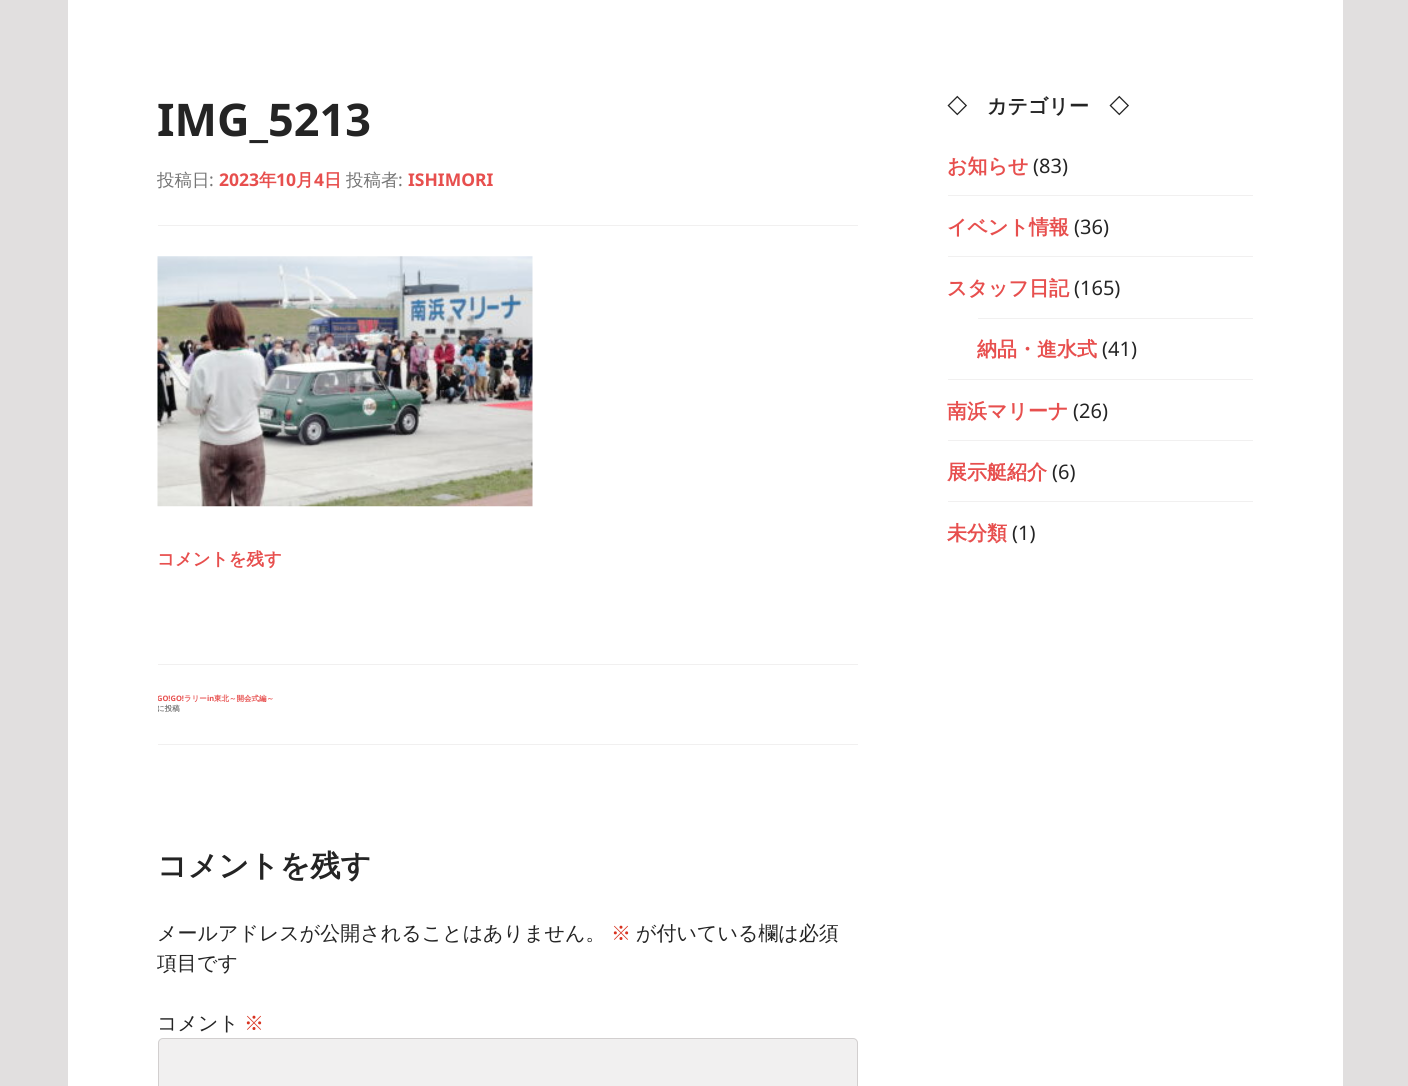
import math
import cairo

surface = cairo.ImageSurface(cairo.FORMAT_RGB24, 1408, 1086)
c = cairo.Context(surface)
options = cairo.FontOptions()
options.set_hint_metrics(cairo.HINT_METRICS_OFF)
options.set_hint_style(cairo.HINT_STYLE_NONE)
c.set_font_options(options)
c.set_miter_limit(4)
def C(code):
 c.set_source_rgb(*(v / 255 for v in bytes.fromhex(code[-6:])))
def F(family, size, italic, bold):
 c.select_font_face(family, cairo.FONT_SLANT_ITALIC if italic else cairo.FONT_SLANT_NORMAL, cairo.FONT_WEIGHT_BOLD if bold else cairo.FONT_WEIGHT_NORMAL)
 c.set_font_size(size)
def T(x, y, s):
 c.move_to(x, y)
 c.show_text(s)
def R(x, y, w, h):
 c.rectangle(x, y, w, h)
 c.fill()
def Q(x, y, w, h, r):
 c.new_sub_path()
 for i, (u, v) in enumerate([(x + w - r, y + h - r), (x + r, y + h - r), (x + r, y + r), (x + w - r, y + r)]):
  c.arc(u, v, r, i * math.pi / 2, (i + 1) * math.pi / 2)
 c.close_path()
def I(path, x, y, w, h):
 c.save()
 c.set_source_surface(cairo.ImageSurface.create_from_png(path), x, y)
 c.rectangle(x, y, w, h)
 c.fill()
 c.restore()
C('e1dfdf')
c.paint()
C('ffffff')
R(68,0,1275,1086)
F('Noto Sans',45,0,1)
C('242424')
T(157,136,'IMG_5213')
C('f1f0f0')
R(158,225,700,1)
F('WenQuanYi Zen Hei Medium',17.5,0,0)
C('757575')
T(157,186,'投稿日')
F('Noto Sans',17.5,0,0)
T(209,186,':')
F('Noto Sans',17.5,0,1)
C('e74f4e')
T(219,186,'2023')
F('WenQuanYi Zen Hei',17.5,0,1)
T(259,186,'年')
F('Noto Sans',17.5,0,1)
T(276,186,'10')
F('WenQuanYi Zen Hei',17.5,0,1)
T(296,186,'月')
F('Noto Sans',17.5,0,1)
T(314,186,'4')
F('WenQuanYi Zen Hei',17.5,0,1)
T(324,186,'日')
F('WenQuanYi Zen Hei Medium',17.5,0,0)
C('757575')
T(346,186,'投稿者')
F('Noto Sans',17.5,0,0)
T(398,186,':')
F('Noto Sans',17.5,0,1)
C('e74f4e')
T(408,186,'ISHIMORI')
I('1.png',157,256,376,251)
F('WenQuanYi Zen Hei',17.5,0,1)
T(157,565,'コメントを残す')
C('f1f0f0')
R(158,664,700,1)
R(158,744,700,1)
c.save()
c.rectangle(158,665,700,79)
c.clip()
F('Noto Sans',7.5,0,1)
C('e74f4e')
T(157,701,'GO!GO!')
c.restore()
F('WenQuanYi Zen Hei',7.5,0,1)
C('e74f4e')
T(184,701,'ラリー')
F('Noto Sans',7.5,0,1)
T(207,701,'in')
F('WenQuanYi Zen Hei',7.5,0,1)
T(214,701,'東北～開会式編～')
c.save()
c.rectangle(158,665,700,79)
c.clip()
C('757575')
T(157,711,'に投稿')
c.restore()
F('WenQuanYi Zen Hei',30,0,1)
C('242424')
T(157,876,'コメントを残す')
F('WenQuanYi Zen Hei Medium',20,0,0)
T(157,940,'メールアドレスが公開されることはありません。')
C('d9321f')
T(611,940,'※')
C('242424')
T(636,940,'が付いている欄は必須')
T(157,970,'項目です')
T(157,1030,'コメント')
C('d9321f')
T(244,1030,'※')
C('f1f0f0')
Q(158.5,1038.5,699,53,4.5)
c.fill_preserve()
C('d2cfcf')
c.set_line_width(1)
c.stroke()
F('WenQuanYi Zen Hei',20,0,1)
C('242424')
T(947,113,'◇　カテゴリー　◇')
C('e74f4e')
T(947,173,'お知らせ')
F('Noto Sans',20,0,0)
C('242424')
T(1033,173,'(83)')
C('f1f0f0')
R(948,195,305,1)
F('WenQuanYi Zen Hei',20,0,1)
C('e74f4e')
T(947,234,'イベント情報')
F('Noto Sans',20,0,0)
C('242424')
T(1074,234,'(36)')
C('f1f0f0')
R(948,256,305,1)
F('WenQuanYi Zen Hei',20,0,1)
C('e74f4e')
T(947,295,'スタッフ日記')
F('Noto Sans',20,0,0)
C('242424')
T(1074,295,'(165)')
C('f1f0f0')
R(978,318,275,1)
F('WenQuanYi Zen Hei',20,0,1)
C('e74f4e')
T(977,356,'納品・進水式')
F('Noto Sans',20,0,0)
C('242424')
T(1102,356,'(41)')
C('f1f0f0')
R(948,379,305,1)
F('WenQuanYi Zen Hei',20,0,1)
C('e74f4e')
T(947,418,'南浜マリーナ')
F('Noto Sans',20,0,0)
C('242424')
T(1073,418,'(26)')
C('f1f0f0')
R(948,440,305,1)
F('WenQuanYi Zen Hei',20,0,1)
C('e74f4e')
T(947,479,'展示艇紹介')
F('Noto Sans',20,0,0)
C('242424')
T(1052,479,'(6)')
C('f1f0f0')
R(948,501,305,1)
F('WenQuanYi Zen Hei',20,0,1)
C('e74f4e')
T(947,540,'未分類')
F('Noto Sans',20,0,0)
C('242424')
T(1012,540,'(1)')
surface.write_to_png('o.png')
